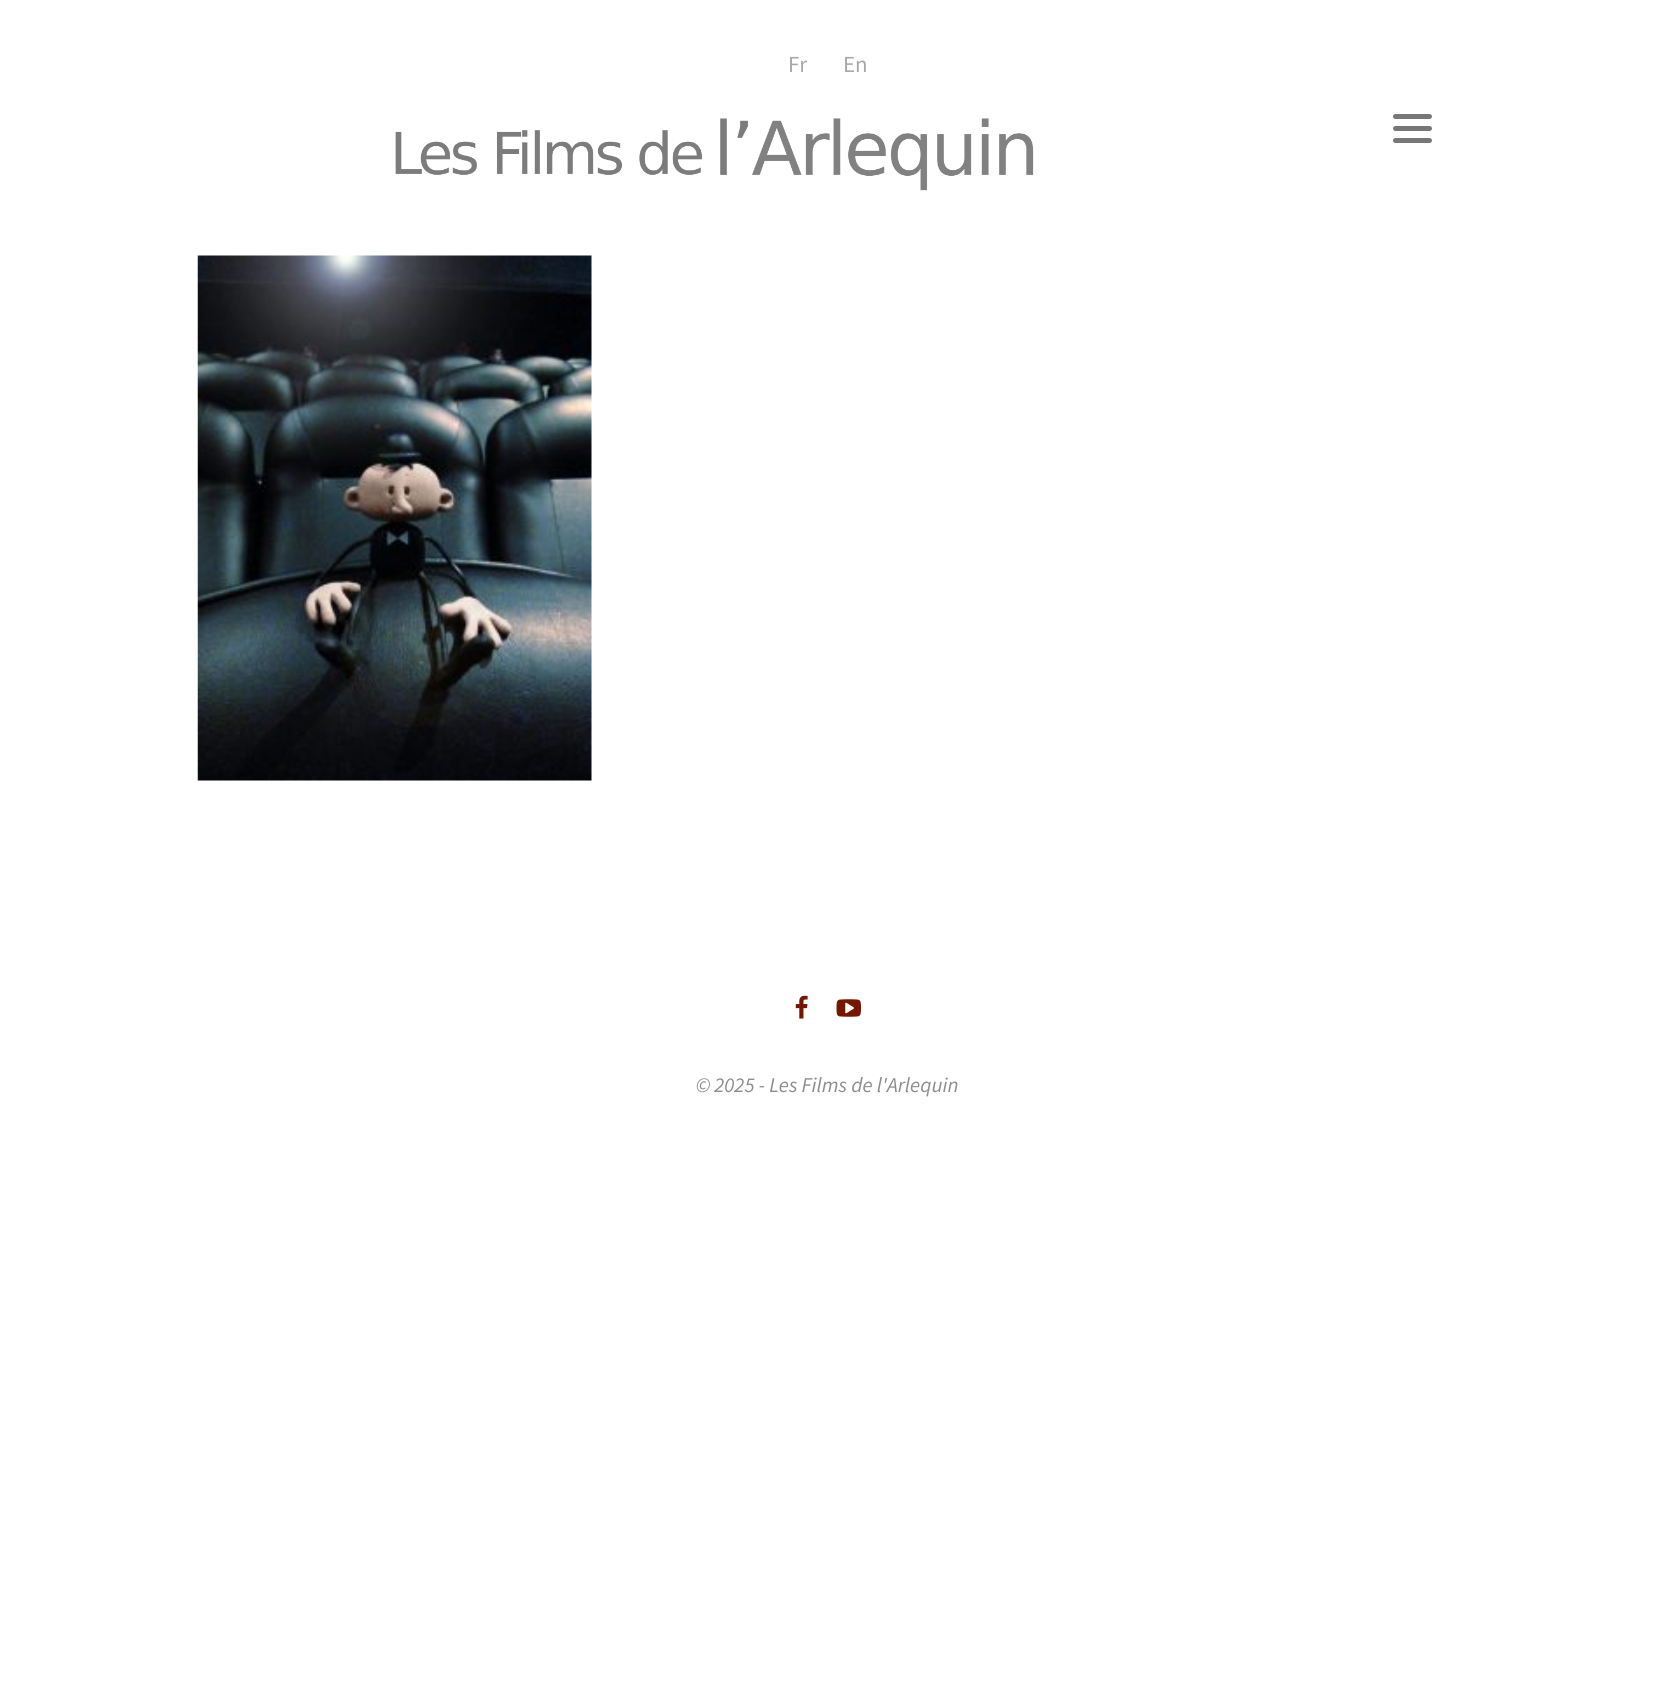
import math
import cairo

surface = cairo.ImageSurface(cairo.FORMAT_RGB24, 1655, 1707)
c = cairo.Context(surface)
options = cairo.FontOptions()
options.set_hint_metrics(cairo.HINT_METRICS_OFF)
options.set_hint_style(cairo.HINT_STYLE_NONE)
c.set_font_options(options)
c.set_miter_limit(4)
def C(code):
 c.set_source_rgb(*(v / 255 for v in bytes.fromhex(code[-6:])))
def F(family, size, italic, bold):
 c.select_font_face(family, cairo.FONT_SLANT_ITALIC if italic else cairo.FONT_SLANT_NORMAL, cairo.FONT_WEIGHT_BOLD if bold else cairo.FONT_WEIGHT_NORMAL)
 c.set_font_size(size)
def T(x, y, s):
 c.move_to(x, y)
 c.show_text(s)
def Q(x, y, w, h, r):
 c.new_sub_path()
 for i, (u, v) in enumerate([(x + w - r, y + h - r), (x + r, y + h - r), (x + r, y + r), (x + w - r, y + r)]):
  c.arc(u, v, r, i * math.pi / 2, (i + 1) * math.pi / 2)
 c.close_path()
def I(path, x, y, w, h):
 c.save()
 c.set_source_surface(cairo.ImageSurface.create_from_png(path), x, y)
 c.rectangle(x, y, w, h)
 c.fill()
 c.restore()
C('ffffff')
c.paint()
F('Source Sans Pro',23,0,0)
C('a9a7a7')
T(788,72,'Fr')
T(843,72,'En')
I('1.png',395,118,639,73)
C('777777')
Q(1393,114,39,5,2.5)
c.fill()
Q(1393,126,39,5,2.5)
c.fill()
Q(1393,138,39,5,2.5)
c.fill()
I('2.png',197,255,395,526)
I('3.png',795,995,13,24)
I('4.png',836,999,25,18)
F('Source Sans Pro',21,1,0)
C('8d8d8d')
T(696,1092,'© 2025 - Les Films de l\'Arlequin')
surface.write_to_png('o.png')
